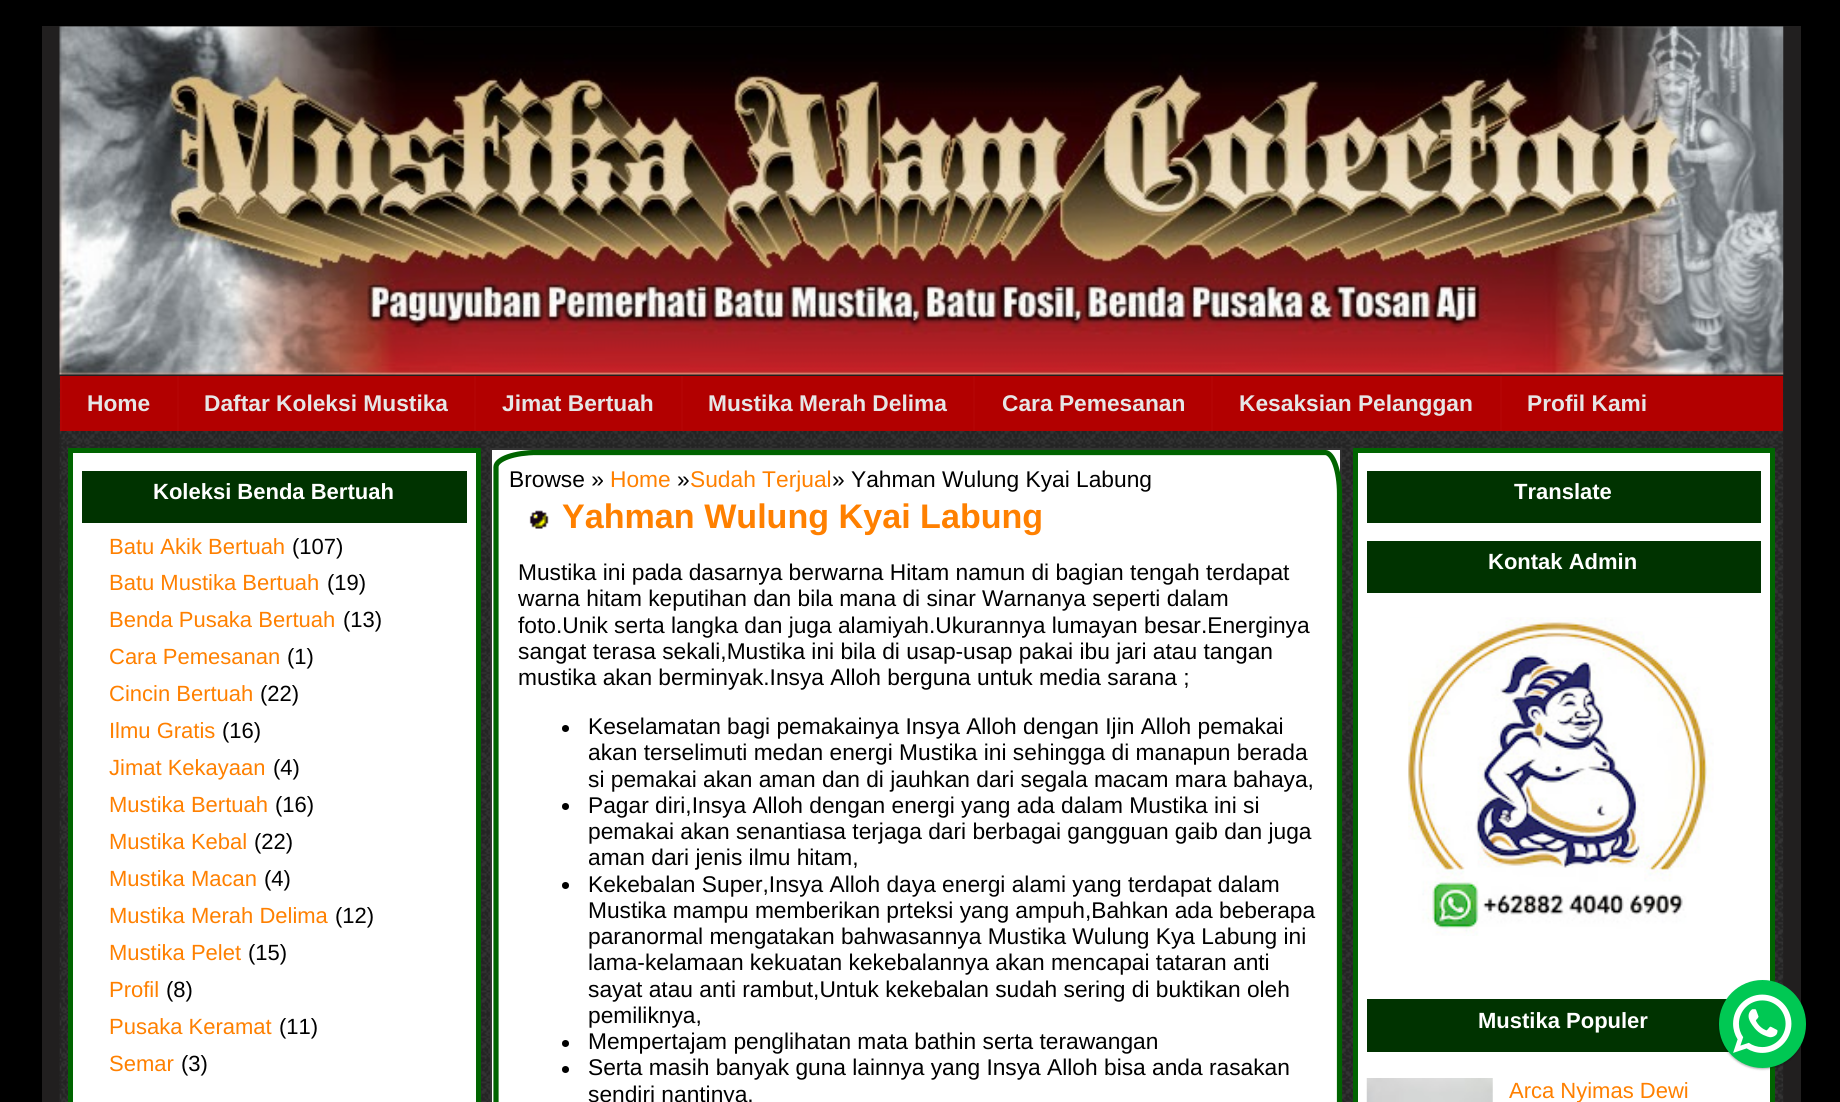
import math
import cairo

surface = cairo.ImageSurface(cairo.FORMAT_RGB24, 1840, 1102)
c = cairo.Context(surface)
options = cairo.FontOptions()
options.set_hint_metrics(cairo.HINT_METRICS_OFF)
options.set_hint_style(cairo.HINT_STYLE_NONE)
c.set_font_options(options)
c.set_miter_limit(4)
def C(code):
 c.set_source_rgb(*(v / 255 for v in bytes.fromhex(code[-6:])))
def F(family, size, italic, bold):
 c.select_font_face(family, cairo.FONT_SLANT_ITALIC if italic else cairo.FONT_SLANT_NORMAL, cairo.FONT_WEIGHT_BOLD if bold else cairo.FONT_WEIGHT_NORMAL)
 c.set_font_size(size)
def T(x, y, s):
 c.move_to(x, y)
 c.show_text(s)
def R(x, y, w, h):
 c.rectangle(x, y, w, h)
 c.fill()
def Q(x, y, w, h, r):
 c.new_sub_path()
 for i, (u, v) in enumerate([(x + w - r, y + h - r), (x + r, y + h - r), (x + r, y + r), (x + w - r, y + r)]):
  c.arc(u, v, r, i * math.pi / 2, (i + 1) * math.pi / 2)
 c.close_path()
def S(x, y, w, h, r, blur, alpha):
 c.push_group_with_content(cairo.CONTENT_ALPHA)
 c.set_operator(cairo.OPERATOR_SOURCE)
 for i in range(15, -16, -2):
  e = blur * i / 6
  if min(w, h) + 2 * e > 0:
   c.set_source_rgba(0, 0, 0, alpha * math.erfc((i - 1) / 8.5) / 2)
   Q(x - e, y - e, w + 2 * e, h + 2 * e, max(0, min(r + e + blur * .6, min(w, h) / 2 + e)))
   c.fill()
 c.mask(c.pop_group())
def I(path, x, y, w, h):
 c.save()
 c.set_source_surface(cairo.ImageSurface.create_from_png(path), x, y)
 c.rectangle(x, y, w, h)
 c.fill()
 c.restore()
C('000000')
c.paint()
C('211f1f')
R(42,26,1759,1076)
I('1.png',59,26,1725,349)
I('2.png',59,376,1725,726)
C('b20000')
R(62,376,1721,55)
C('b40404')
R(60,376,2,55)
F('Liberation Sans',22.75,0,1)
C('e6e6e6')
T(87,411,'Home')
C('b40404')
R(177,376,2,55)
C('e6e6e6')
T(204,411,'Daftar Koleksi Mustika')
C('b40404')
R(474,376,2,55)
C('e6e6e6')
T(502,411,'Jimat Bertuah')
C('b40404')
R(681,376,2,55)
C('e6e6e6')
T(708,411,'Mustika Merah Delima')
C('b40404')
R(973,376,2,55)
C('e6e6e6')
T(1002,411,'Cara Pemesanan')
C('b40404')
R(1211,376,2,55)
C('e6e6e6')
T(1239,411,'Kesaksian Pelanggan')
C('b40404')
R(1500,376,2,55)
C('e6e6e6')
T(1527,411,'Profil Kami')
C('ffffff')
c.rectangle(70.5,450.5,408,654)
c.fill_preserve()
C('006400')
c.set_line_width(5)
c.stroke()
C('003300')
R(82,471,385,52)
F('Liberation Sans',22,0,1)
C('ffffff')
T(153,499,'Koleksi Benda Bertuah')
F('Liberation Sans',22,0,0)
C('ff8000')
T(109,554,'Batu Akik Bertuah')
C('000000')
T(292,554,'(107)')
C('ff8000')
T(109,590,'Batu Mustika Bertuah')
C('000000')
T(327,590,'(19)')
C('ff8000')
T(109,627,'Benda Pusaka Bertuah')
C('000000')
T(343,627,'(13)')
C('ff8000')
T(109,664,'Cara Pemesanan')
C('000000')
T(287,664,'(1)')
C('ff8000')
T(109,701,'Cincin Bertuah')
C('000000')
T(260,701,'(22)')
C('ff8000')
T(109,738,'Ilmu Gratis')
C('000000')
T(222,738,'(16)')
C('ff8000')
T(109,775,'Jimat Kekayaan')
C('000000')
T(273,775,'(4)')
C('ff8000')
T(109,812,'Mustika Bertuah')
C('000000')
T(275,812,'(16)')
C('ff8000')
T(109,849,'Mustika Kebal')
C('000000')
T(254,849,'(22)')
C('ff8000')
T(109,886,'Mustika Macan')
C('000000')
T(264,886,'(4)')
C('ff8000')
T(109,923,'Mustika Merah Delima')
C('000000')
T(335,923,'(12)')
C('ff8000')
T(109,960,'Mustika Pelet')
C('000000')
T(248,960,'(15)')
C('ff8000')
T(109,997,'Profil')
C('000000')
T(166,997,'(8)')
C('ff8000')
T(109,1034,'Pusaka Keramat')
C('000000')
T(279,1034,'(11)')
C('ff8000')
T(109,1071,'Semar')
C('000000')
T(181,1071,'(3)')
C('ffffff')
c.rectangle(491,449,850,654)
c.fill_preserve()
C('323232')
c.set_line_width(2)
c.stroke()
c.new_path()
c.move_to(537,452.5)
c.line_to(1325,452.5)
c.curve_to(1333,452.5,1339.5,471,1339.5,493.5)
c.line_to(1339.5,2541)
c.curve_to(1339.5,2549,1321,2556,1298.5,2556)
c.line_to(511,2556)
c.curve_to(503,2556,496,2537.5,496,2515)
c.line_to(496,467)
c.curve_to(496,459,514.5,452.5,537,452.5)
c.close_path()
C('006400')
c.set_line_width(5.2)
c.stroke()
F('Liberation Sans',22.75,0,0)
C('000000')
T(509,487,'Browse »')
C('ff8000')
T(610,487,'Home')
C('000000')
T(677,487,'»')
C('ff8000')
T(690,487,'Sudah Terjual')
C('000000')
T(832,487,'» Yahman Wulung Kyai Labung')
I('3.png',529,510,20,19)
F('Liberation Sans',34.1,0,1)
C('ff8000')
T(562,528,'Yahman Wulung Kyai Labung')
F('Liberation Sans',22.75,0,0)
C('000000')
T(518,580,'Mustika ini pada dasarnya berwarna Hitam namun di bagian tengah terdapat')
T(518,606,'warna hitam keputihan dan bila mana di sinar Warnanya seperti dalam')
T(518,633,'foto.Unik serta langka dan juga alamiyah.Ukurannya lumayan besar.Energinya')
T(518,659,'sangat terasa sekali,Mustika ini bila di usap-usap pakai ibu jari atau tangan')
T(518,685,'mustika akan berminyak.Insya Alloh berguna untuk media sarana ;')
c.new_path()
c.arc(565.5,728.5,3.5,0,2 * math.pi)
c.fill()
T(588,734,'Keselamatan bagi pemakainya Insya Alloh dengan Ijin Alloh pemakai')
T(588,760,'akan terselimuti medan energi Mustika ini sehingga di manapun berada')
T(588,787,'si pemakai akan aman dan di jauhkan dari segala macam mara bahaya,')
c.new_path()
c.arc(565.5,806.5,3.5,0,2 * math.pi)
c.fill()
T(588,813,'Pagar diri,Insya Alloh dengan energi yang ada dalam Mustika ini si')
T(588,839,'pemakai akan senantiasa terjaga dari berbagai gangguan gaib dan juga')
T(588,865,'aman dari jenis ilmu hitam,')
c.new_path()
c.arc(565.5,885.5,3.5,0,2 * math.pi)
c.fill()
T(588,892,'Kekebalan Super,Insya Alloh daya energi alami yang terdapat dalam')
T(588,918,'Mustika mampu memberikan prteksi yang ampuh,Bahkan ada beberapa')
T(588,944,'paranormal mengatakan bahwasannya Mustika Wulung Kya Labung ini')
T(588,970,'lama-kelamaan kekuatan kekebalannya akan mencapai tataran anti')
T(588,997,'sayat atau anti rambut,Untuk kekebalan sudah sering di buktikan oleh')
T(588,1023,'pemiliknya,')
c.new_path()
c.arc(565.5,1043.5,3.5,0,2 * math.pi)
c.fill()
T(588,1049,'Mempertajam penglihatan mata bathin serta terawangan')
c.new_path()
c.arc(565.5,1069.5,3.5,0,2 * math.pi)
c.fill()
T(588,1075,'Serta masih banyak guna lainnya yang Insya Alloh bisa anda rasakan')
T(588,1102,'sendiri nantinya,')
C('ffffff')
c.rectangle(1355.5,450.5,417,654)
c.fill_preserve()
C('006400')
c.set_line_width(5)
c.stroke()
C('003300')
R(1367,471,394,52)
F('Liberation Sans',22,0,1)
C('ffffff')
T(1514,499,'Translate')
C('003300')
R(1367,541,394,52)
C('ffffff')
T(1488,569,'Kontak Admin')
I('4.png',1408,617,306,319)
C('003300')
R(1367,999,362,53)
C('ffffff')
T(1478,1028,'Mustika Populer')
I('5.png',1366,1078,127,24)
F('Liberation Sans',22,0,0)
C('ff8000')
T(1509,1098,'Arca Nyimas Dewi')
C('000000')
S(1719,982,87,87,43.5,1,.24)
S(1719,982,87,87,43.5,1.5,.12)
C('00c853')
Q(1719,980,87,88,43.5)
c.fill()
I('6.png',1733,994,59,59)
surface.write_to_png('o.png')
